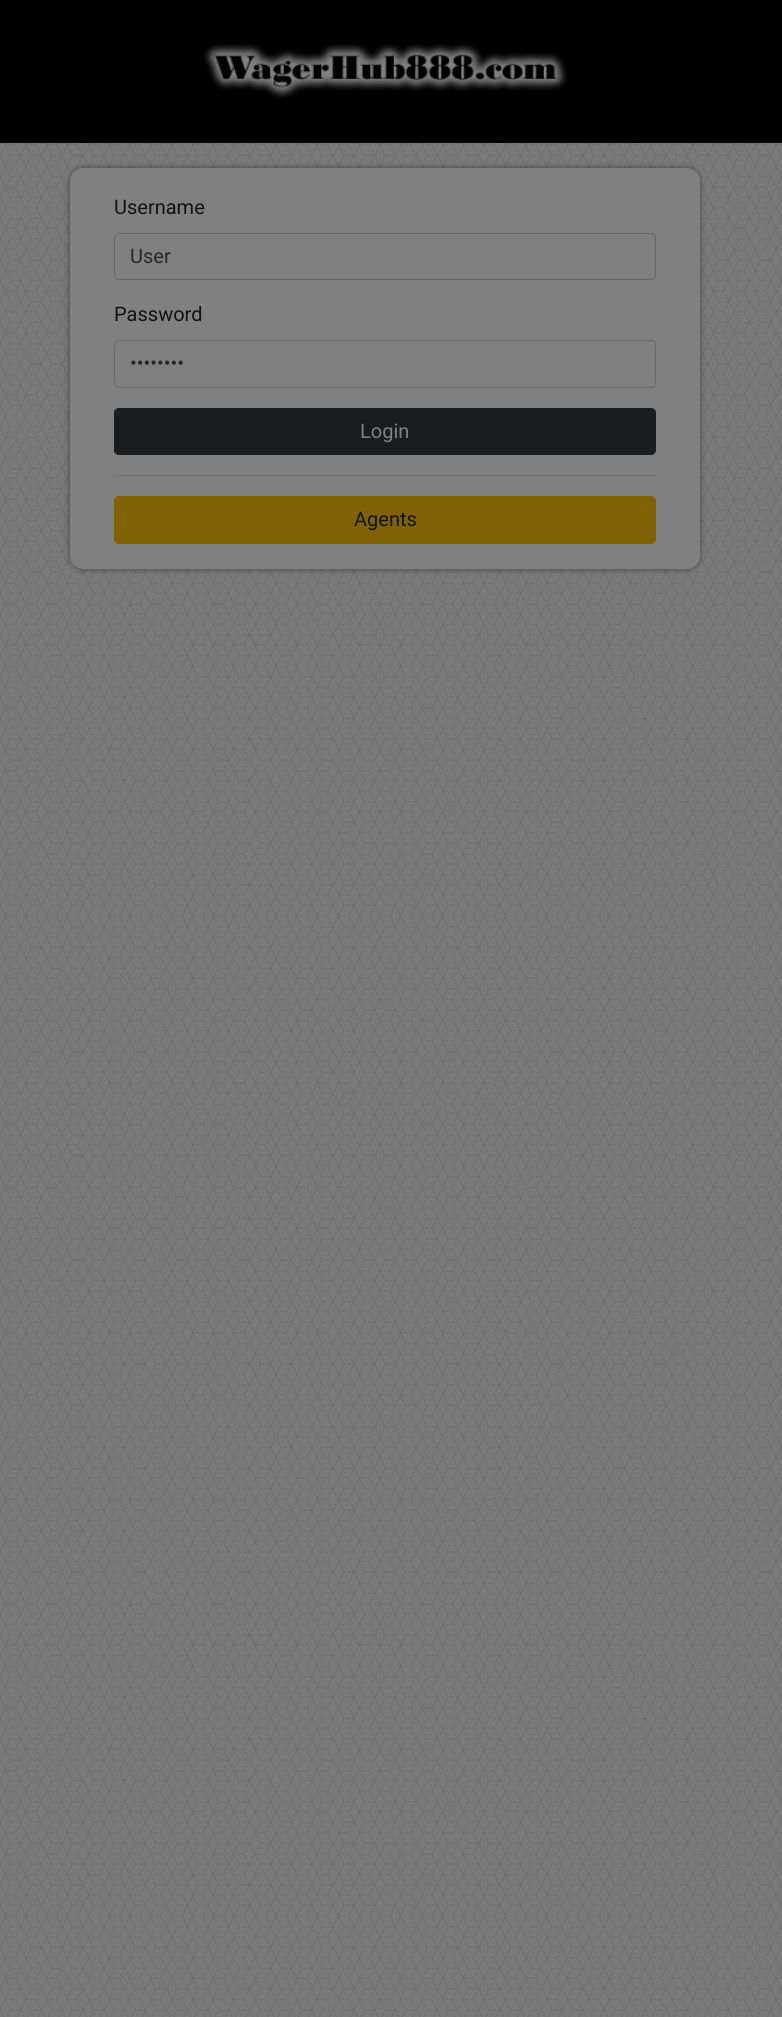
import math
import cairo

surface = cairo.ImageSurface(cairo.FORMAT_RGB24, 782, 2017)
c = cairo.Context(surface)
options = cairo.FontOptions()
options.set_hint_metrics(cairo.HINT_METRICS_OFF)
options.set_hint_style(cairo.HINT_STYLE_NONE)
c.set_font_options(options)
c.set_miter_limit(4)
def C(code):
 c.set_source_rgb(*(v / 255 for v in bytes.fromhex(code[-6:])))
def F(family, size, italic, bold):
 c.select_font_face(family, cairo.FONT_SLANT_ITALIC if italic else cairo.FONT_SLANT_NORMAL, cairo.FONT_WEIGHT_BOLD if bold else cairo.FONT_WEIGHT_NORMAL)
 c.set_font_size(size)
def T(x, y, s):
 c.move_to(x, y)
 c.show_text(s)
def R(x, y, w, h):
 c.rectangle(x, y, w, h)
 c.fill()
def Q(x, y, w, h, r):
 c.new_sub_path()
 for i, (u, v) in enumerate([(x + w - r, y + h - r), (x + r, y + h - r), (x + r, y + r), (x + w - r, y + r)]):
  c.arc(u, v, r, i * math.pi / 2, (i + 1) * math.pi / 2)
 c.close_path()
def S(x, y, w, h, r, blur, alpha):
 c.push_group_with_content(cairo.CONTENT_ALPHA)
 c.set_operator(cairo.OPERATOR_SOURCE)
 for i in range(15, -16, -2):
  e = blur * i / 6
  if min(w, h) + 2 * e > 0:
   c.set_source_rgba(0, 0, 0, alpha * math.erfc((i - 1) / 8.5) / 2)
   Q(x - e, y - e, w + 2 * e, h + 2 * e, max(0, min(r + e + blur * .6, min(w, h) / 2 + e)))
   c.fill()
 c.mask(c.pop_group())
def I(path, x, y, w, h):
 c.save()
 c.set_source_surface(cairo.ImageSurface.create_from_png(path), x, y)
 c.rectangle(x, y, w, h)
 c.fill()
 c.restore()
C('ffffff')
c.paint()
I('1.png',0,143,782,1874)
C('000000')
R(0,0,782,143)
I('2.png',203,44,365,55)
C('1a1a1a')
S(70,168,630,401,13,3,.6)
C('808080')
Q(70,168,630,401,13)
c.fill()
F('Roboto',20,0,0)
C('111315')
T(114,214,'Username')
Q(114.5,233.5,541,46,4.5)
C('676a6d')
c.set_line_width(1)
c.stroke()
C('25282c')
T(130,263,'User')
C('111315')
T(114,321,'Password')
Q(114.5,340.5,541,47,4.5)
C('676a6d')
c.stroke()
C('25282c')
T(130,370,'••••••••')
C('1a1d20')
Q(114.5,408.5,541,46,4.5)
c.fill_preserve()
c.stroke()
C('808080')
T(360,438,'Login')
C('737373')
R(114,475,542,1)
C('806104')
Q(114.5,496.5,541,47,4.5)
c.fill_preserve()
c.stroke()
C('111315')
T(354,526,'Agents')
surface.write_to_png('o.png')
